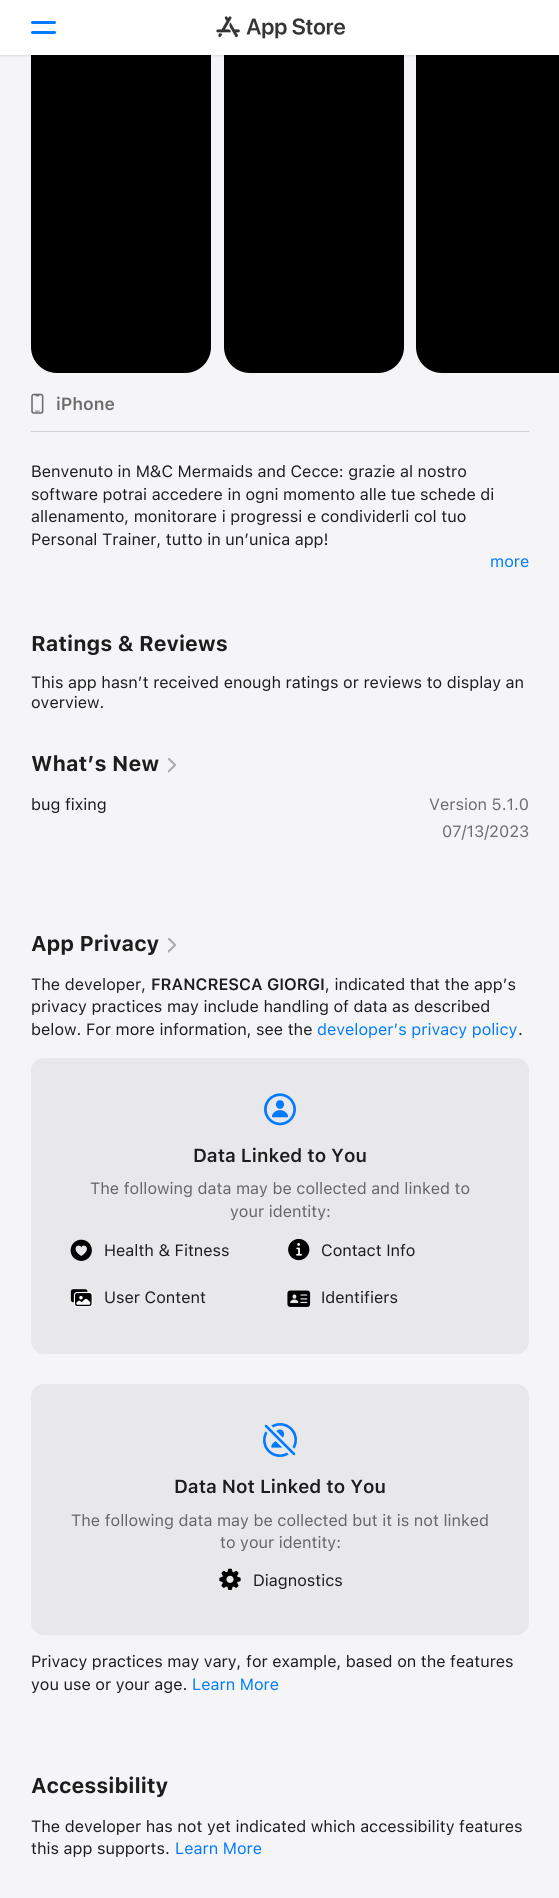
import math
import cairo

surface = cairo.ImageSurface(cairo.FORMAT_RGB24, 559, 1898)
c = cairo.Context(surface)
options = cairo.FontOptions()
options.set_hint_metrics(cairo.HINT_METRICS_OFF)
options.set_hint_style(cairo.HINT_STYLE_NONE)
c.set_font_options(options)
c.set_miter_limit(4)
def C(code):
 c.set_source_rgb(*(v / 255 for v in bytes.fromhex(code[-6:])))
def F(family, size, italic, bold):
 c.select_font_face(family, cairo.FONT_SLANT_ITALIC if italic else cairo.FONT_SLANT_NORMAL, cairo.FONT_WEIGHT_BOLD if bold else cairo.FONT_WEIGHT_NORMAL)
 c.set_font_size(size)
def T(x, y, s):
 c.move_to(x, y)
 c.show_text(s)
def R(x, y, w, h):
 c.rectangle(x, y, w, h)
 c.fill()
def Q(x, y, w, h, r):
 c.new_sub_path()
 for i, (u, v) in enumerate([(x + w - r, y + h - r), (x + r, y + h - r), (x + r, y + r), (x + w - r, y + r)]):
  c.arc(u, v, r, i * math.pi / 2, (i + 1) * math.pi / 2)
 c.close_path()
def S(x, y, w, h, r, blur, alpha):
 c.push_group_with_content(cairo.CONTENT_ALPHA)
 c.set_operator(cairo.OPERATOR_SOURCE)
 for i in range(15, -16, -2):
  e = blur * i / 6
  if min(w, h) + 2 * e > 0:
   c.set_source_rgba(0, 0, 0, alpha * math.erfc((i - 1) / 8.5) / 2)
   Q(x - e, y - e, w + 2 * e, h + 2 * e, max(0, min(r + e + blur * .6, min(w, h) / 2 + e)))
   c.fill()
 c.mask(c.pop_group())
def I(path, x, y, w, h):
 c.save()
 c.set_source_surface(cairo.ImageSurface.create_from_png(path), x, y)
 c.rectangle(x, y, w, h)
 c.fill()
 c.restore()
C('f5f5f7')
c.paint()
C('000000')
Q(31,-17,180,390,26)
c.fill()
Q(224,-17,180,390,26)
c.fill()
c.new_path()
c.move_to(442,-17)
c.line_to(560,-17)
c.line_to(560,373)
c.line_to(442,373)
c.curve_to(427.5,373,416,361.5,416,347)
c.line_to(416,9)
c.curve_to(416,-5.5,427.5,-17,442,-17)
c.close_path()
c.fill()
C('000000')
S(0,1,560,55,0,1,.1)
C('ffffff')
R(0,0,559,55)
C('007aff')
Q(31,21,25,3,1.5)
c.fill()
Q(31,31,25,3,1.5)
c.fill()
I('1.png',216,16,129,23)
I('2.png',31,393,13,21)
F('SF SemiBold',17.5,0,0)
C('6c6c6d')
T(56,410,'iPhone')
C('d1d1d6')
R(31,431,498,1)
F('SF',16.25,0,0)
C('1d1d1e')
T(31,477,'Benvenuto in M&C Mermaids and Cecce: grazie al nostro')
T(31,500,'software potrai accedere in ogni momento alle tue schede di')
T(31,522,'allenamento, monitorare i progressi e condividerli col tuo')
T(31,545,'Personal Trainer, tutto in un’unica app!')
C('007aff')
T(490,567,'more')
F('SF',21.25,0,1)
C('1d1d1e')
T(31,651,'Ratings & Reviews')
F('SF',16.25,0,0)
T(31,688,'This app hasn’t received enough ratings or reviews to display an')
T(31,708,'overview.')
F('SF',21.25,0,1)
T(31,771,'What’s New')
I('3.png',168,758,8,15)
F('SF',16.25,0,0)
T(31,810,'bug fixing')
C('6c6c6d')
T(429,810,'Version 5.1.0')
T(442,837,'07/13/2023')
F('SF',21.25,0,1)
C('1d1d1e')
T(31,951,'App Privacy')
I('3.png',168,938,8,15)
F('SF',16.25,0,0)
T(31,990,'The developer,')
F('SF SemiBold',16.25,0,0)
T(151,990,'FRANCRESCA GIORGI')
F('SF',16.25,0,0)
T(325,990,', indicated that the app’s')
T(31,1012,'privacy practices may include handling of data as described')
T(31,1035,'below. For more information, see the')
C('007aff')
T(317,1035,'developer’s privacy policy')
C('1d1d1e')
T(518,1035,'.')
C('e8e8eb')
Q(31,1058,498,296,13)
c.fill()
I('4.png',264,1093,32,33)
F('SF SemiBold',18.75,0,0)
C('1d1d1e')
T(193,1162,'Data Linked to You')
F('SF',16.25,0,0)
C('666667')
T(90,1194,'The following data may be collected and linked to')
T(230,1217,'your identity:')
I('5.png',70,1239,22,22)
C('1d1d1e')
T(104,1256,'Health & Fitness')
I('6.png',288,1238,22,23)
T(321,1256,'Contact Info')
I('7.png',70,1289,23,19)
T(104,1303,'User Content')
I('8.png',287,1290,24,17)
T(321,1303,'Identifiers')
C('e8e8eb')
Q(31,1384,498,251,13)
c.fill()
I('9.png',263,1423,34,34)
F('SF SemiBold',18.75,0,0)
C('1d1d1e')
T(174,1493,'Data Not Linked to You')
F('SF',16.25,0,0)
C('666667')
T(71,1526,'The following data may be collected but it is not linked')
T(220,1548,'to your identity:')
I('10.png',219,1568,22,22)
C('1d1d1e')
T(253,1586,'Diagnostics')
T(31,1667,'Privacy practices may vary, for example, based on the features')
T(31,1690,'you use or your age.')
C('007aff')
T(192,1690,'Learn More')
F('SF',21.25,0,1)
C('1d1d1e')
T(31,1793,'Accessibility')
F('SF',16.25,0,0)
T(31,1832,'The developer has not yet indicated which accessibility features')
T(31,1854,'this app supports.')
C('007aff')
T(175,1854,'Learn More')
surface.write_to_png('o.png')
